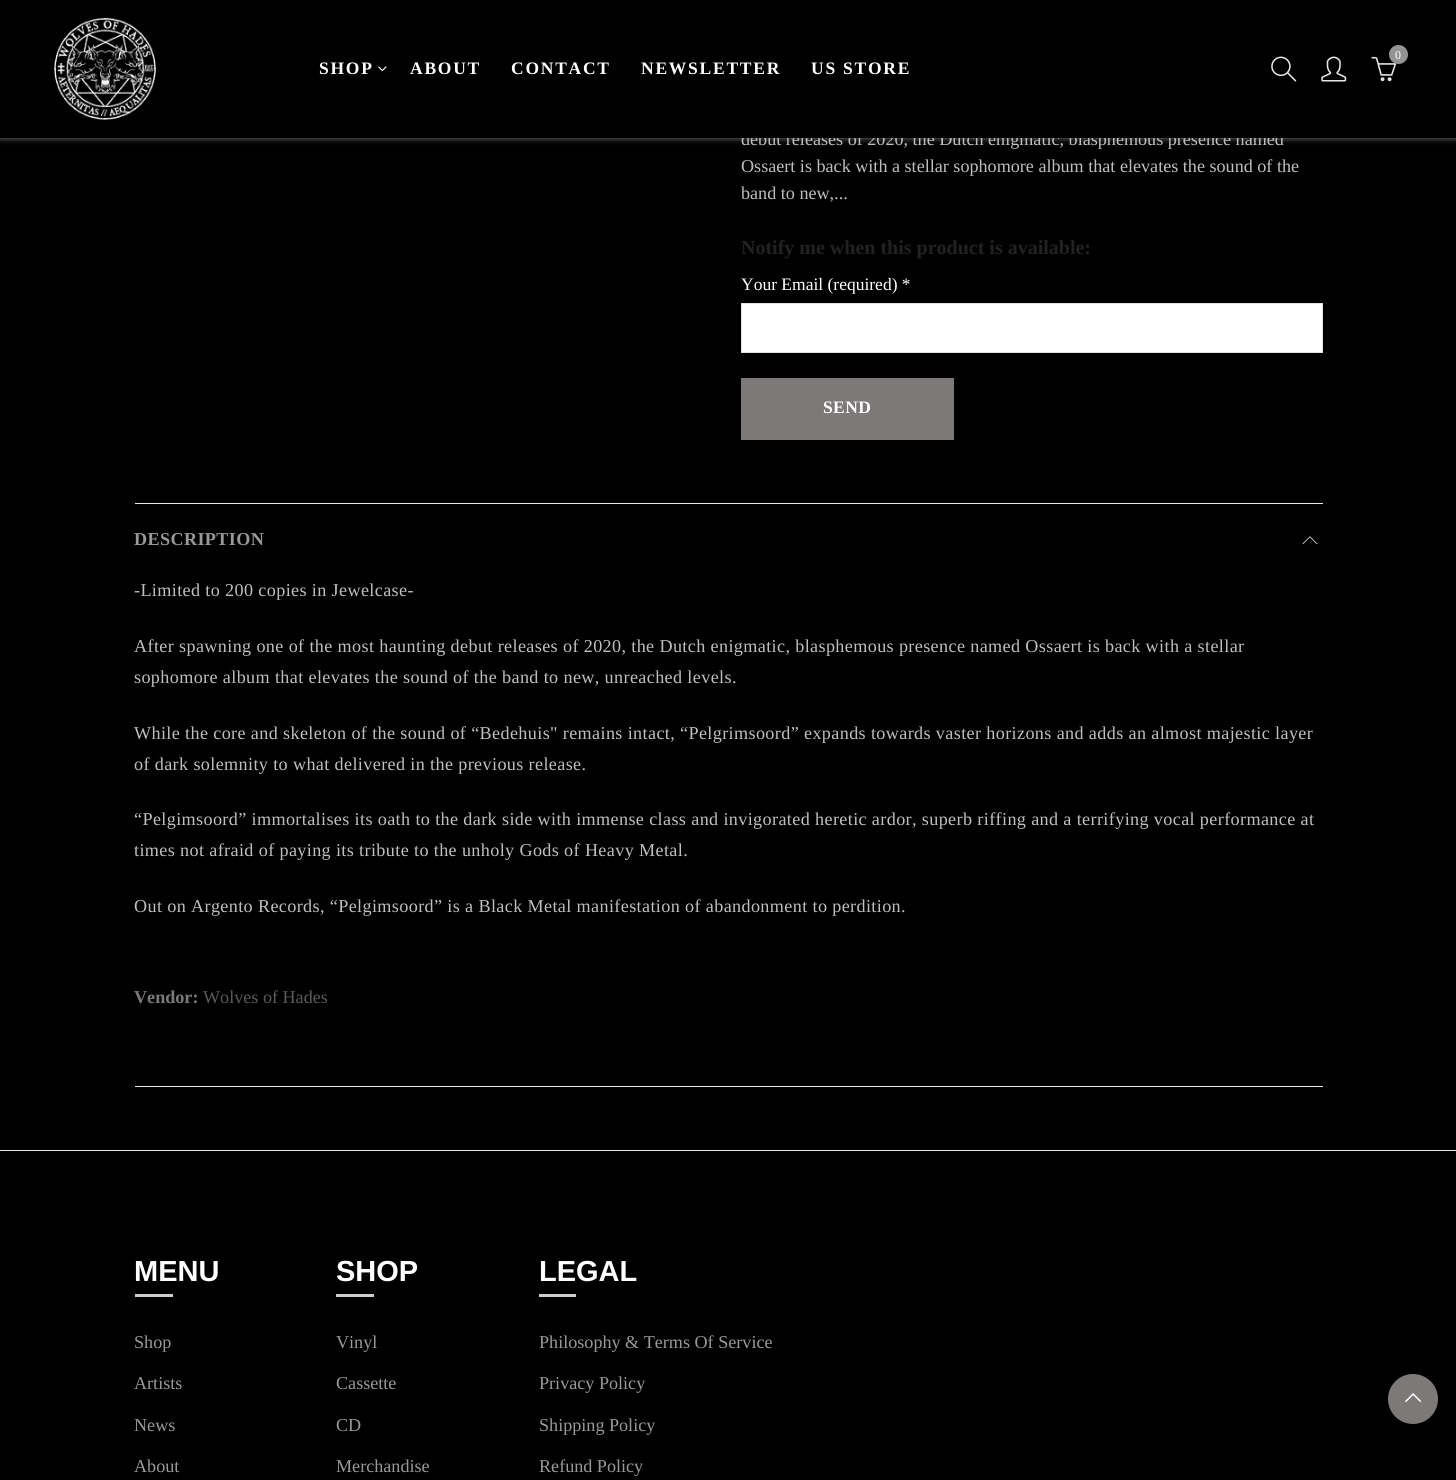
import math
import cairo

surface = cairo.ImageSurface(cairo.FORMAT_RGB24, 1456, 1480)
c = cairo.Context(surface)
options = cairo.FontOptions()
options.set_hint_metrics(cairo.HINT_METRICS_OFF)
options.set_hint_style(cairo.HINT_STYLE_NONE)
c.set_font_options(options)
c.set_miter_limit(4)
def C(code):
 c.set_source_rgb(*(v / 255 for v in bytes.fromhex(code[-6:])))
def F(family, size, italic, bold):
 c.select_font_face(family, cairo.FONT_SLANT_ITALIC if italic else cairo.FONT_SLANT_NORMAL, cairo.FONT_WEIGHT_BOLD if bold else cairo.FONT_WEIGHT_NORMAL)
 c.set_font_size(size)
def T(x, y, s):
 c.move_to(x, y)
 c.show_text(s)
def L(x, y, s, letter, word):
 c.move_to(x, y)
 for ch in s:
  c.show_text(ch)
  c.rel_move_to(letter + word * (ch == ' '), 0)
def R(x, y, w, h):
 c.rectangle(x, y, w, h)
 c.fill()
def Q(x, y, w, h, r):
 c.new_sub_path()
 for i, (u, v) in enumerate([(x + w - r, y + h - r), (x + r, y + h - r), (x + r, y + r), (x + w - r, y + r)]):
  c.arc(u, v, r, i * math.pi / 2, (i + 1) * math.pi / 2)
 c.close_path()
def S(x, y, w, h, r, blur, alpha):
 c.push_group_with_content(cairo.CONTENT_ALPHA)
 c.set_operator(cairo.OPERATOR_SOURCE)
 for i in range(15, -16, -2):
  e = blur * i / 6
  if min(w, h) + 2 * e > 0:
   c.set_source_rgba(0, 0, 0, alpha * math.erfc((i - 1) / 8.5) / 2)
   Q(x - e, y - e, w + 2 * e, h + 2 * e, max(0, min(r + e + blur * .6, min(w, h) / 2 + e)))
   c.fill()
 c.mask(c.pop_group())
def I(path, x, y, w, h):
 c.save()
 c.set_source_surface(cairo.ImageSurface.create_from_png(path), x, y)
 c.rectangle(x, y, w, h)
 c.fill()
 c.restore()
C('000000')
c.paint()
C('bebebe')
S(0,1,1456,138,0,3,.5)
F('Liberation Serif',18.12,0,0)
C('bfbfbf')
T(741,145,'debut releases of 2020, the Dutch enigmatic, blasphemous presence named')
C('000000')
R(0,0,1456,138)
I('1.png',54,17,102,103)
I('2.png',1371,56,26,26)
C('949494')
c.arc(1398.5,54.5,9.5,0,2 * math.pi)
c.fill()
F('Liberation Serif',12,0,0)
C('ffffff')
T(1395,59,'0')
I('3.png',1271,56,26,26)
I('4.png',1321,56,26,26)
F('Liberation Serif',17.5,0,1)
L(319,74,'SHOP',1.75,0)
I('5.png',378,66,9,6)
L(410,74,'ABOUT',1.75,0)
L(511,74,'CONTACT',1.75,0)
L(641,74,'NEWSLETTER',1.75,0)
L(811,74,'US STORE',1.75,0)
F('Liberation Serif',18.12,0,0)
C('bfbfbf')
T(741,172,'Ossaert is back with a stellar sophomore album that elevates the sound of the')
T(741,199,'band to new,...')
F('Liberation Serif',20,0,1)
C('222222')
T(741,254,'Notify me when this product is available:')
F('Liberation Serif',17.5,0,0)
C('ffffff')
T(741,290,'Your Email (required) *')
c.rectangle(741.5,303.5,581,49)
c.fill_preserve()
C('e0e0e0')
c.set_line_width(1)
c.stroke()
C('7e7979')
R(741,378,213,62)
F('Liberation Serif',17.5,0,1)
C('ffffff')
L(823,413,'SEND',.38,0)
C('ececec')
R(135,503,1188,1)
F('Liberation Serif',18.12,0,1)
C('999999')
L(134,545,'DESCRIPTION',.4,0)
I('6.png',1302,536,16,9)
F('Liberation Serif',18.12,0,0)
C('bfbfbf')
L(134,596,'-Limited to 200 copies in Jewelcase-',.38,0)
L(134,652,'After spawning one of the most haunting debut releases of 2020, the Dutch enigmatic, blasphemous presence named Ossaert is back with a stellar',.38,0)
L(134,683,'sophomore album that elevates the sound of the band to new, unreached levels.',.38,0)
L(134,739,'While the core and skeleton of the sound of “Bedehuis" remains intact, “Pelgrimsoord” expands towards vaster horizons and adds an almost majestic layer',.38,0)
L(134,770,'of dark solemnity to what delivered in the previous release.',.38,0)
L(134,825,'“Pelgimsoord” immortalises its oath to the dark side with immense class and invigorated heretic ardor, superb riffing and a terrifying vocal performance at',.38,0)
L(134,856,'times not afraid of paying its tribute to the unholy Gods of Heavy Metal.',.38,0)
L(134,912,'Out on Argento Records, “Pelgimsoord” is a Black Metal manifestation of abandonment to perdition.',.38,0)
F('Liberation Serif',18.12,0,1)
C('7e7979')
T(134,1003,'Vendor:')
F('Liberation Serif',18.12,0,0)
C('5a5a5a')
T(203,1003,'Wolves of Hades')
C('eeeeee')
R(135,1086,1188,1)
C('ececec')
R(0,1150,1456,1)
F('Liberation Sans',29,0,1)
C('ffffff')
T(134,1281,'MENU')
C('cccccc')
R(135,1294,38,3)
F('Liberation Serif',18.12,0,0)
C('999999')
T(134,1348,'Shop')
T(134,1389,'Artists')
T(134,1431,'News')
T(134,1472,'About')
F('Liberation Sans',29,0,1)
C('ffffff')
T(336,1281,'SHOP')
C('cccccc')
R(336,1294,38,3)
F('Liberation Serif',18.12,0,0)
C('999999')
T(336,1348,'Vinyl')
T(336,1389,'Cassette')
T(336,1431,'CD')
T(336,1472,'Merchandise')
F('Liberation Sans',29,0,1)
C('ffffff')
T(539,1281,'LEGAL')
C('cccccc')
R(539,1294,37,3)
F('Liberation Serif',18.12,0,0)
C('999999')
T(539,1348,'Philosophy & Terms Of Service')
T(539,1389,'Privacy Policy')
T(539,1431,'Shipping Policy')
T(539,1472,'Refund Policy')
C('7e7979')
c.new_path()
c.arc(1413,1399,25,0,2 * math.pi)
c.fill()
I('7.png',1405,1393,17,10)
surface.write_to_png('o.png')
